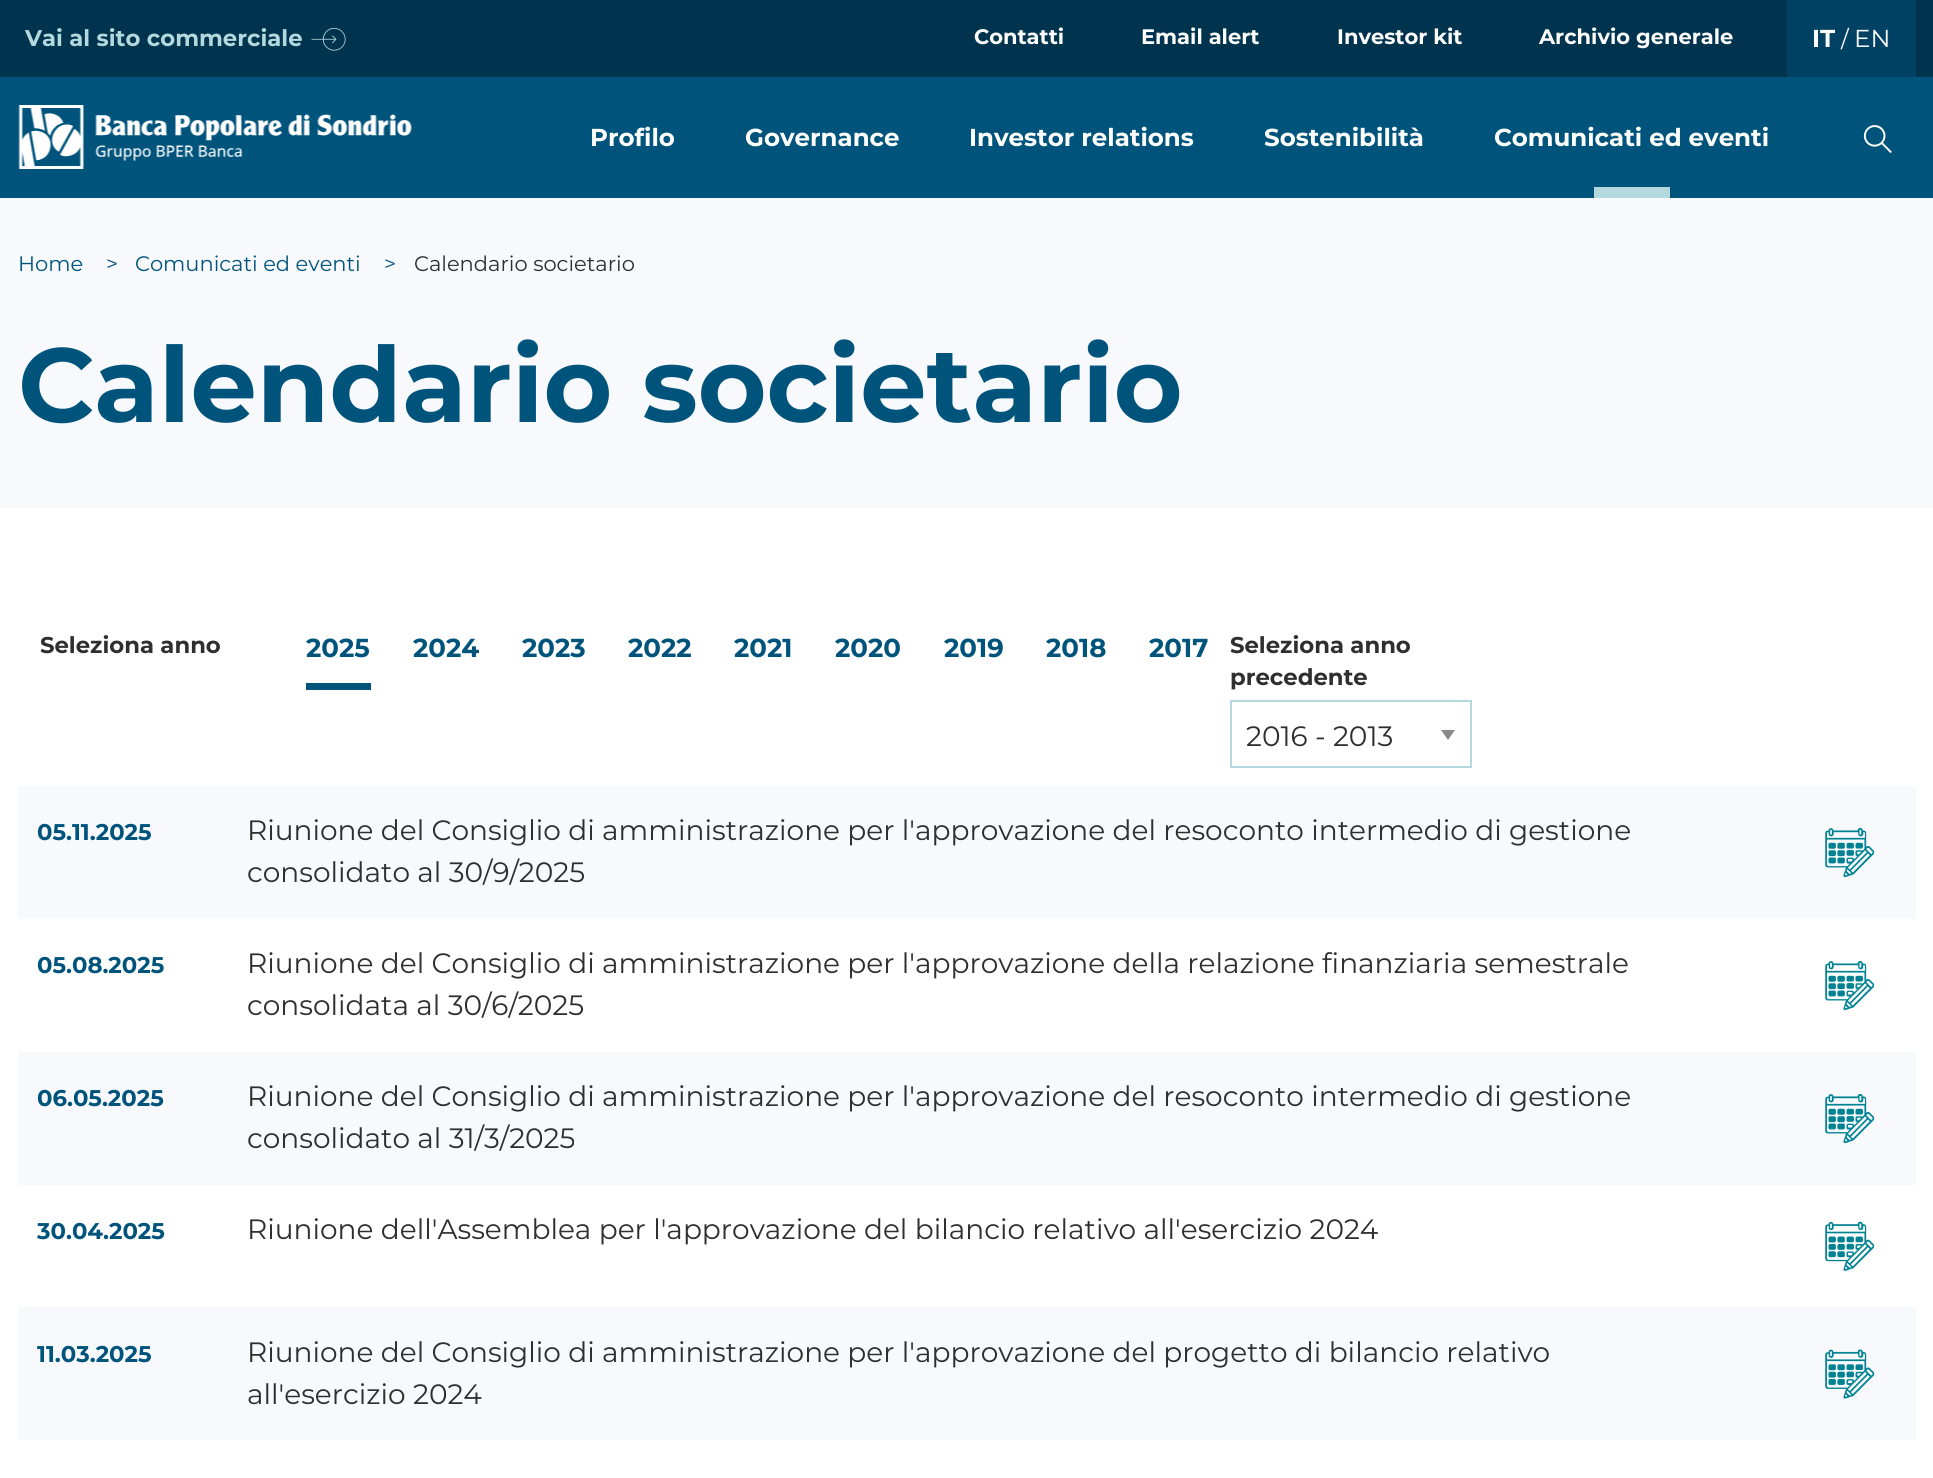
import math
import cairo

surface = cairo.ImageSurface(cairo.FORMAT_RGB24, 1933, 1478)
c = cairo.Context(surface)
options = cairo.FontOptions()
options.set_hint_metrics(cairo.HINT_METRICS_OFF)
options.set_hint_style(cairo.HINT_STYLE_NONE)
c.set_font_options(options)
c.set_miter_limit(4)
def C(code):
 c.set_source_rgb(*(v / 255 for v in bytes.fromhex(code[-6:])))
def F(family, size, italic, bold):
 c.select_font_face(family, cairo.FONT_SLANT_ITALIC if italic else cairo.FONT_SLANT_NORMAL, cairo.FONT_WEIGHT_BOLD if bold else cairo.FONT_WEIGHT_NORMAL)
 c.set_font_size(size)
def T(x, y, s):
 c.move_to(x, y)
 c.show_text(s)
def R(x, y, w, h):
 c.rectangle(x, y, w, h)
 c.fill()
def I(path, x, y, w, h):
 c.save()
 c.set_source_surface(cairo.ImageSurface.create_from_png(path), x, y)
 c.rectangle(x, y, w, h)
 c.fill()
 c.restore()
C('ffffff')
c.paint()
C('00334e')
R(0,0,1933,77)
F('Montserrat',22.75,0,1)
C('b3d9de')
T(25,46,'Vai al sito commerciale')
I('1.png',311,27,35,24)
F('Montserrat',21,0,1)
C('ffffff')
T(974,44,'Contatti')
T(1141,44,'Email alert')
T(1337,44,'Investor kit')
T(1539,44,'Archivio generale')
C('004164')
R(1787,0,129,77)
F('Montserrat',24.5,0,1)
C('ffffff')
T(1812,47,'IT')
F('Montserrat',22.75,0,0)
T(1841,47,'/')
F('Montserrat',24.5,0,0)
T(1854,47,'EN')
C('00547c')
R(0,77,1933,121)
I('2.png',18,105,394,64)
F('Montserrat',24.5,0,1)
C('ffffff')
T(590,146,'Profilo')
T(745,146,'Governance')
T(969,146,'Investor relations')
T(1264,146,'Sostenibilità')
T(1494,146,'Comunicati ed eventi')
C('b3d9de')
R(1594,187,76,11)
I('3.png',1863,125,29,28)
C('f7f9fc')
R(0,198,1933,310)
F('Montserrat',21,0,0)
C('00547c')
T(18,271,'Home')
T(106,271,'>')
T(135,271,'Comunicati ed eventi')
T(384,271,'>')
C('2f2f2f')
T(414,271,'Calendario societario')
F('Montserrat',105,0,1)
C('00547c')
T(18,422,'Calendario societario')
F('Montserrat',22.75,0,1)
C('2f2f2f')
T(40,653,'Seleziona anno')
C('00547c')
R(306,683,65,7)
F('Montserrat',26,0,1)
T(306,657,'2025')
T(413,657,'2024')
T(522,657,'2023')
T(628,657,'2022')
T(734,657,'2021')
T(835,657,'2020')
T(944,657,'2019')
T(1046,657,'2018')
T(1149,657,'2017')
F('Montserrat',22.75,0,1)
C('2f2f2f')
T(1230,653,'Seleziona anno')
T(1230,685,'precedente')
C('8a8a8a')
c.new_path()
c.move_to(1441,730)
c.line_to(1455,730)
c.line_to(1448,740)
c.close_path()
c.fill()
c.rectangle(1231,701,240,66)
C('b3d9de')
c.stroke()
F('Montserrat',28,0,0)
C('2f2f2f')
T(1246,746,'2016 - 2013')
C('f7f9fc')
R(18,786,1898,133)
F('Montserrat',22.75,0,1)
C('00547c')
T(37,840,'05.11.2025')
F('Montserrat',28,0,0)
C('2f2f2f')
T(247,840,'Riunione del Consiglio di amministrazione per l\'approvazione del resoconto intermedio di gestione')
T(247,882,'consolidato al 30/9/2025')
I('4.png',1825,828,50,50)
F('Montserrat',22.75,0,1)
C('00547c')
T(37,973,'05.08.2025')
F('Montserrat',28,0,0)
C('2f2f2f')
T(247,973,'Riunione del Consiglio di amministrazione per l\'approvazione della relazione finanziaria semestrale')
T(247,1015,'consolidata al 30/6/2025')
I('5.png',1825,961,50,50)
C('f7f9fc')
R(18,1052,1898,133)
F('Montserrat',22.75,0,1)
C('00547c')
T(37,1106,'06.05.2025')
F('Montserrat',28,0,0)
C('2f2f2f')
T(247,1106,'Riunione del Consiglio di amministrazione per l\'approvazione del resoconto intermedio di gestione')
T(247,1148,'consolidato al 31/3/2025')
I('4.png',1825,1094,50,50)
F('Montserrat',22.75,0,1)
C('00547c')
T(37,1239,'30.04.2025')
F('Montserrat',28,0,0)
C('2f2f2f')
T(247,1239,'Riunione dell\'Assemblea per l\'approvazione del bilancio relativo all\'esercizio 2024')
I('6.png',1825,1221,50,50)
C('f7f9fc')
R(18,1307,1898,133)
F('Montserrat',22.75,0,1)
C('00547c')
T(37,1362,'11.03.2025')
F('Montserrat',28,0,0)
C('2f2f2f')
T(247,1362,'Riunione del Consiglio di amministrazione per l\'approvazione del progetto di bilancio relativo')
T(247,1404,'all\'esercizio 2024')
I('7.png',1825,1349,50,50)
surface.write_to_png('o.png')
